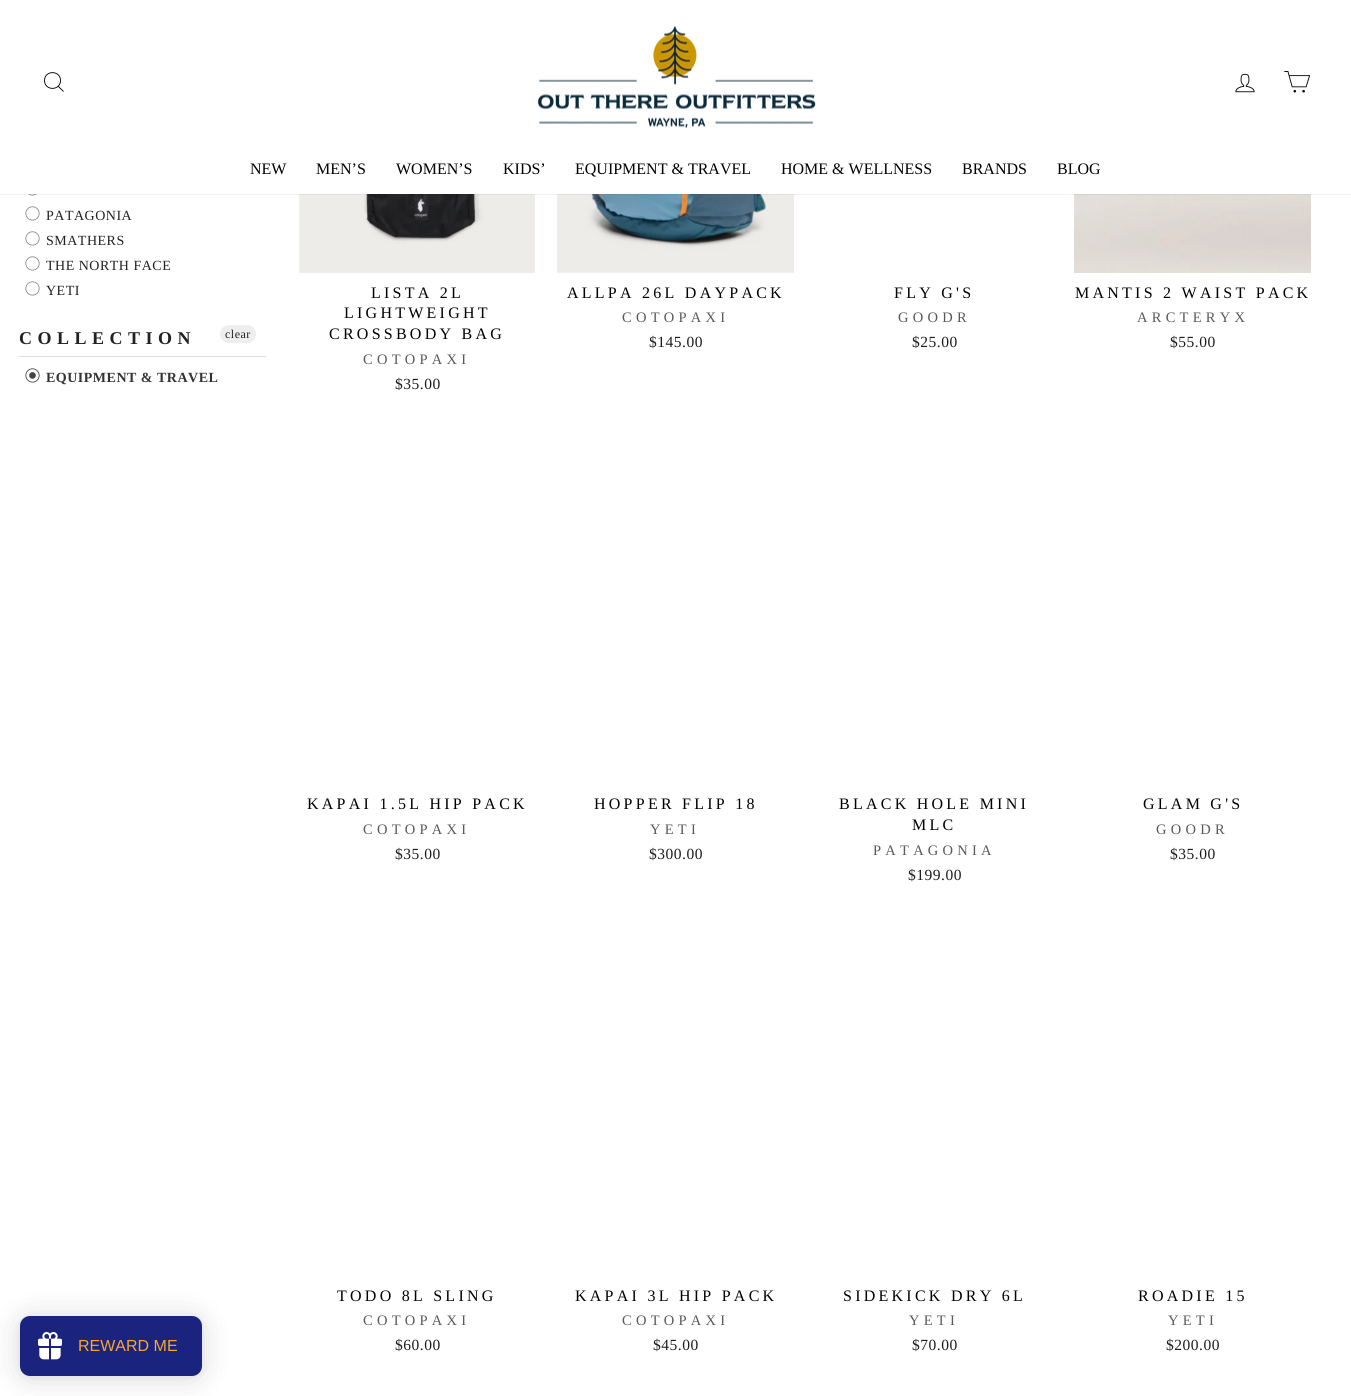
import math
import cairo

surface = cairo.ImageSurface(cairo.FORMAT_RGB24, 1351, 1396)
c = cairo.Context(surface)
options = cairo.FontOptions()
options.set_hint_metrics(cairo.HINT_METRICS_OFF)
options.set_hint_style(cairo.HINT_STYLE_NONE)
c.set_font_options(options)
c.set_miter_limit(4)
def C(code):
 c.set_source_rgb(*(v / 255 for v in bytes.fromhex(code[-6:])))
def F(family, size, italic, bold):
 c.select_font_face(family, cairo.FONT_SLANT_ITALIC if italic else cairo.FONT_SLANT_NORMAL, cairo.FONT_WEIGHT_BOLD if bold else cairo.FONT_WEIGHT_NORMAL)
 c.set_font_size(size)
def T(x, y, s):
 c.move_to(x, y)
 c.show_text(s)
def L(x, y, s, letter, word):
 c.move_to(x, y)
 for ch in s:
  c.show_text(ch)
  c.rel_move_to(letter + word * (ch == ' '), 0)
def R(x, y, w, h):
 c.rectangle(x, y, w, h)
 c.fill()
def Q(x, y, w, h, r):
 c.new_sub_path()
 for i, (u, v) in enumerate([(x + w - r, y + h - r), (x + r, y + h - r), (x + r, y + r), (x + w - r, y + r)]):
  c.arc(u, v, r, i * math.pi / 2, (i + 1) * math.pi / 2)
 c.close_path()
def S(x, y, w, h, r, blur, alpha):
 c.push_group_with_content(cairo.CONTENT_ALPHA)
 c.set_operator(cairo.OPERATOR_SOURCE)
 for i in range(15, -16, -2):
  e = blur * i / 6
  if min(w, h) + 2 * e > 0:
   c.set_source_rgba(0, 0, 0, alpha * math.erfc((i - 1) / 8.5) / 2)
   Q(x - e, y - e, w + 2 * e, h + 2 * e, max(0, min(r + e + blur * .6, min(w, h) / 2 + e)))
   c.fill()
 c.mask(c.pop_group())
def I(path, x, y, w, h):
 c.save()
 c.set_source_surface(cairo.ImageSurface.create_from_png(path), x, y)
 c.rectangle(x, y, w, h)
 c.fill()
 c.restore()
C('ffffff')
c.paint()
I('4.png',28,194,9,2)
I('7.png',299,194,236,79)
I('8.png',557,194,237,79)
I('9.png',1074,194,237,79)
C('000000')
S(0,0,1351,194,0,.5,.2)
C('ffffff')
R(0,0,1351,194)
c.new_path()
c.move_to(60.5,80.5)
c.curve_to(60.5,91,44.5,91,44.5,80.5)
c.curve_to(44.5,70,60.5,70,60.5,80.5)
c.close_path()
c.move_to(63.5,91.5)
c.line_to(58.5,86.5)
C('000000')
c.set_line_width(.9)
c.stroke()
I('1.png',538,26,278,102)
I('2.png',1235,73,20,20)
I('3.png',1284,71,27,22)
F('Liberation Serif',16,0,0)
T(250,174,'NEW')
T(316,174,'MEN’S')
T(396,174,'WOMEN’S')
T(503,174,'KIDS’')
T(575,174,'EQUIPMENT & TRAVEL')
T(781,174,'HOME & WELLNESS')
T(962,174,'BRANDS')
T(1057,174,'BLOG')
I('5.png',25,206,15,15)
F('Liberation Serif',14,0,0)
C('222222')
L(46,220,'PATAGONIA',.5,0)
I('5.png',25,231,15,15)
L(46,245,'SMATHERS',.5,0)
I('5.png',25,256,15,15)
L(46,270,'THE NORTH FACE',.5,0)
I('5.png',25,281,15,15)
L(46,295,'YETI',.5,0)
C('eeeeee')
Q(220,325,36,18,9)
c.fill()
F('Liberation Serif',12,0,0)
C('222222')
L(225,338,'clear',.5,0)
I('6.png',25,368,15,15)
F('Liberation Serif',14,0,1)
C('333333')
L(46,382,'EQUIPMENT & TRAVEL',.5,0)
C('dddddd')
R(19,356,247,1)
F('Liberation Serif',18,0,1)
C('222222')
L(19,344,'COLLECTION',5.5,0)
F('Liberation Serif',16,0,0)
C('000000')
L(371,298,'LISTA 2L',3.25,0)
L(344,318,'LIGHTWEIGHT',3.25,0)
L(329,339,'CROSSBODY BAG',3.25,0)
F('Liberation Serif',14.5,0,0)
C('595959')
L(363,364,'COTOPAXI',4.25,0)
F('Liberation Serif',15.5,0,0)
C('1c1d1d')
L(395,389,'$35.00',.5,0)
F('Liberation Serif',16,0,0)
C('000000')
L(567,298,'ALLPA 26L DAYPACK',3.25,0)
F('Liberation Serif',14.5,0,0)
C('595959')
L(622,322,'COTOPAXI',4.25,0)
F('Liberation Serif',15.5,0,0)
C('1c1d1d')
L(649,347,'$145.00',.5,0)
F('Liberation Serif',16,0,0)
C('000000')
L(894,298,'FLY G\'S',3.25,0)
F('Liberation Serif',14.5,0,0)
C('595959')
L(898,322,'GOODR',4.25,0)
F('Liberation Serif',15.5,0,0)
C('1c1d1d')
L(912,347,'$25.00',.5,0)
F('Liberation Serif',16,0,0)
C('000000')
L(1075,298,'MANTIS 2 WAIST PACK',3.25,0)
F('Liberation Serif',14.5,0,0)
C('595959')
L(1137,322,'ARCTERYX',4.25,0)
F('Liberation Serif',15.5,0,0)
C('1c1d1d')
L(1170,347,'$55.00',.5,0)
F('Liberation Serif',16,0,0)
C('000000')
L(307,809,'KAPAI 1.5L HIP PACK',3.25,0)
F('Liberation Serif',14.5,0,0)
C('595959')
L(363,834,'COTOPAXI',4.25,0)
F('Liberation Serif',15.5,0,0)
C('1c1d1d')
L(395,859,'$35.00',.5,0)
F('Liberation Serif',16,0,0)
C('000000')
L(594,809,'HOPPER FLIP 18',3.25,0)
F('Liberation Serif',14.5,0,0)
C('595959')
L(650,834,'YETI',4.25,0)
F('Liberation Serif',15.5,0,0)
C('1c1d1d')
L(649,859,'$300.00',.5,0)
F('Liberation Serif',16,0,0)
C('000000')
L(839,809,'BLACK HOLE MINI',3.25,0)
L(912,830,'MLC',3.25,0)
F('Liberation Serif',14.5,0,0)
C('595959')
L(873,855,'PATAGONIA',4.25,0)
F('Liberation Serif',15.5,0,0)
C('1c1d1d')
L(908,880,'$199.00',.5,0)
F('Liberation Serif',16,0,0)
C('000000')
L(1143,809,'GLAM G\'S',3.25,0)
F('Liberation Serif',14.5,0,0)
C('595959')
L(1156,834,'GOODR',4.25,0)
F('Liberation Serif',15.5,0,0)
C('1c1d1d')
L(1170,859,'$35.00',.5,0)
F('Liberation Serif',16,0,0)
C('000000')
L(337,1301,'TODO 8L SLING',3.25,0)
F('Liberation Serif',14.5,0,0)
C('595959')
L(363,1325,'COTOPAXI',4.25,0)
F('Liberation Serif',15.5,0,0)
C('1c1d1d')
L(395,1350,'$60.00',.5,0)
F('Liberation Serif',16,0,0)
C('000000')
L(575,1301,'KAPAI 3L HIP PACK',3.25,0)
F('Liberation Serif',14.5,0,0)
C('595959')
L(622,1325,'COTOPAXI',4.25,0)
F('Liberation Serif',15.5,0,0)
C('1c1d1d')
L(653,1350,'$45.00',.5,0)
F('Liberation Serif',16,0,0)
C('000000')
L(843,1301,'SIDEKICK DRY 6L',3.25,0)
F('Liberation Serif',14.5,0,0)
C('595959')
L(909,1325,'YETI',4.25,0)
F('Liberation Serif',15.5,0,0)
C('1c1d1d')
L(912,1350,'$70.00',.5,0)
F('Liberation Serif',16,0,0)
C('000000')
L(1138,1301,'ROADIE 15',3.25,0)
F('Liberation Serif',14.5,0,0)
C('595959')
L(1168,1325,'YETI',4.25,0)
F('Liberation Serif',15.5,0,0)
C('1c1d1d')
L(1166,1350,'$200.00',.5,0)
C('000000')
S(20,1318,182,60,10,15,.15)
S(20,1317,182,60,10,3,.05)
C('1a237e')
Q(20,1316,182,60,10)
c.fill()
I('10.png',38,1332,24,28)
F('Liberation Sans',16,0,0)
C('f9a825')
T(78,1351,'REWARD ME')
surface.write_to_png('o.png')
